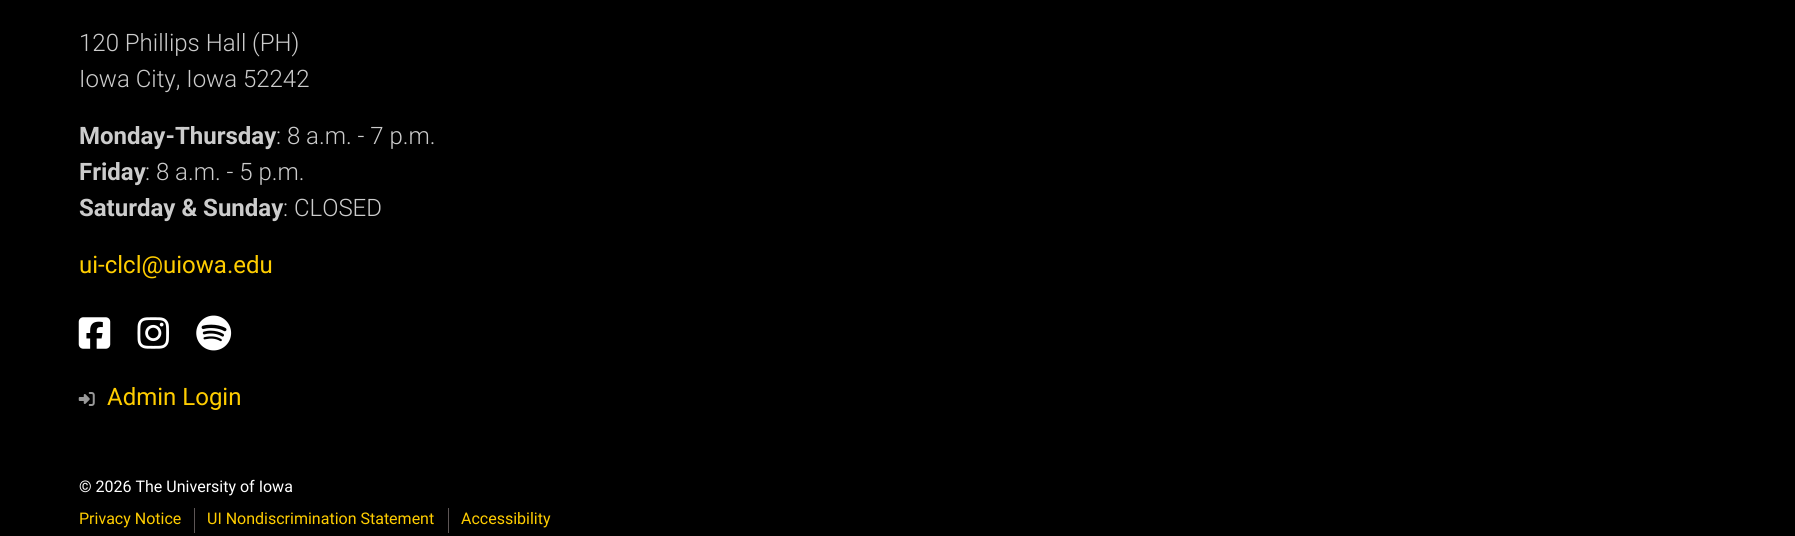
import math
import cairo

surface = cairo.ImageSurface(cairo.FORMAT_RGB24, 1795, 536)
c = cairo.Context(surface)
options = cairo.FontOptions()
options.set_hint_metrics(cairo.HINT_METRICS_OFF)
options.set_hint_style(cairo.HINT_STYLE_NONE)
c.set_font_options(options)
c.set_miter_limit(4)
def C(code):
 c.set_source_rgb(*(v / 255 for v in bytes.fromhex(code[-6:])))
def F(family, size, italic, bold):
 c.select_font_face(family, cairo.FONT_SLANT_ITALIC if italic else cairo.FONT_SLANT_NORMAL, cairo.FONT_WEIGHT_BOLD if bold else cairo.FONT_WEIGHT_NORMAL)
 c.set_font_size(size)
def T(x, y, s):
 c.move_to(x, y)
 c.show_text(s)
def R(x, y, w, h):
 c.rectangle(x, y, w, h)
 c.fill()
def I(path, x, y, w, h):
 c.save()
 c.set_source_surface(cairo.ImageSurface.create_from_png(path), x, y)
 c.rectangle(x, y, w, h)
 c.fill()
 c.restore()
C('000000')
c.paint()
F('Roboto Light',24,0,0)
C('cccccc')
T(79,51,'120 Phillips Hall (PH)')
T(79,87,'Iowa City, Iowa 52242')
F('Roboto',24,0,1)
T(79,144,'Monday-Thursday')
F('Roboto Light',24,0,0)
T(276,144,': 8 a.m. - 7 p.m.')
F('Roboto',24,0,1)
T(79,180,'Friday')
F('Roboto Light',24,0,0)
T(145,180,': 8 a.m. - 5 p.m.')
F('Roboto',24,0,1)
T(79,216,'Saturday & Sunday')
F('Roboto Light',24,0,0)
T(283,216,': CLOSED')
F('Roboto',24,0,0)
C('ffcd00')
T(79,273,'ui-clcl@uiowa.edu')
I('1.png',78,317,33,32)
I('2.png',137,317,32,32)
I('3.png',196,315,36,36)
I('4.png',78,392,17,14)
T(107,405,'Admin Login')
F('Roboto',16,0,0)
C('ffffff')
T(79,492,'© 2026 The University of Iowa')
C('5d5656')
R(194,508,1,25)
C('ffcd00')
T(79,524,'Privacy Notice')
C('5d5656')
R(448,508,1,25)
C('ffcd00')
T(207,524,'UI Nondiscrimination Statement')
T(461,524,'Accessibility')
surface.write_to_png('o.png')
